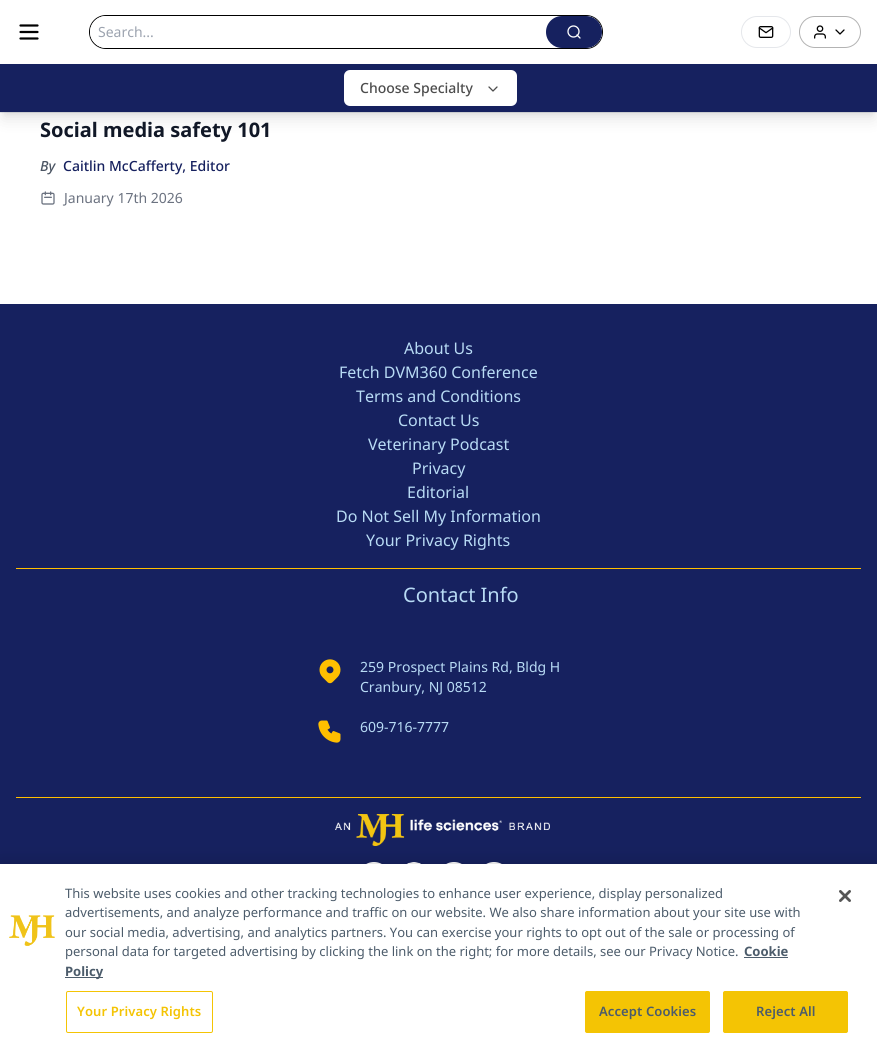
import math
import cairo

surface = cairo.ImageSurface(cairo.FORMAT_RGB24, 877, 1054)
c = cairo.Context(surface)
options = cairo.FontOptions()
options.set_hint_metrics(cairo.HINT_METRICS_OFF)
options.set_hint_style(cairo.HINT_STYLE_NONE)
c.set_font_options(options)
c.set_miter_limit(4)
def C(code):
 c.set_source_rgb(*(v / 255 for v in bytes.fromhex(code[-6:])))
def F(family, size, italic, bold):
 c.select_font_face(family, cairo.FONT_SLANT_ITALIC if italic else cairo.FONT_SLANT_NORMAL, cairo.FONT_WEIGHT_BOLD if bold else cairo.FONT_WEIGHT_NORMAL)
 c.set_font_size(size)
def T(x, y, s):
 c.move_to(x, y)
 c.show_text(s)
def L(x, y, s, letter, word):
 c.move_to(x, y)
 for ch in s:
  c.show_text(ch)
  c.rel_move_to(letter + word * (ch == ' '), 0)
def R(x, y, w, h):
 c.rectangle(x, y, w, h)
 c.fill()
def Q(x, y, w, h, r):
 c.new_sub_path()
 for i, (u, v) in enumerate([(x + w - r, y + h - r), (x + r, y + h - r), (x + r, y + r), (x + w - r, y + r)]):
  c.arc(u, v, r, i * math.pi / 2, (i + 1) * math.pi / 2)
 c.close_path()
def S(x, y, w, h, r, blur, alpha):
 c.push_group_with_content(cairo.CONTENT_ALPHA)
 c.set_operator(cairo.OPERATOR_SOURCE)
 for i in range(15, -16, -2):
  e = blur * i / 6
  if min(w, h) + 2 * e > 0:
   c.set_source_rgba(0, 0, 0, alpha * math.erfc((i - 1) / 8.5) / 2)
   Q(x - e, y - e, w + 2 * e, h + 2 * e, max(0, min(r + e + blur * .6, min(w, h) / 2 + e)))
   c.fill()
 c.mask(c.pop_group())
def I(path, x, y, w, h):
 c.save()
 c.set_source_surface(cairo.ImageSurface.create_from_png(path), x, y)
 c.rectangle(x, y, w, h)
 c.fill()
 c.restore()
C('ffffff')
c.paint()
C('e5e7eb')
R(0,112,877,1)
c.new_path()
c.move_to(20.5,25.5)
c.line_to(37.5,25.5)
c.move_to(20.5,32)
c.line_to(37.5,32)
c.move_to(20.5,38.5)
c.line_to(37.5,38.5)
C('000000')
c.set_line_width(2.2)
c.set_line_cap(cairo.LINE_CAP_ROUND)
c.set_line_join(cairo.LINE_JOIN_ROUND)
c.stroke()
Q(89.5,15.5,513,33,16.5)
c.set_line_width(1)
c.set_line_cap(cairo.LINE_CAP_BUTT)
c.set_line_join(cairo.LINE_JOIN_MITER)
c.stroke()
C('ffffff')
Q(90,16,512,32,16)
c.fill()
F('Noto Sans',14,0,0)
C('9ca3af')
T(98,37,'Search...')
C('16215f')
Q(546,16,56,32,16)
c.fill()
c.arc(573.5,31.5,5.5,0,2 * math.pi)
C('ffffff')
c.set_line_width(1.3)
c.stroke()
c.new_path()
c.move_to(580,38)
c.line_to(577,35)
c.set_line_cap(cairo.LINE_CAP_ROUND)
c.set_line_join(cairo.LINE_JOIN_ROUND)
c.stroke()
Q(741.5,16.5,49,31,15.5)
C('e5e7eb')
c.set_line_width(1)
c.set_line_cap(cairo.LINE_CAP_BUTT)
c.set_line_join(cairo.LINE_JOIN_MITER)
c.stroke()
I('1.png',758,26,16,12)
Q(799.5,16.5,61,31,15.5)
C('b3b3b3')
c.stroke()
I('2.png',814,25,12,14)
c.new_path()
c.move_to(836,30)
c.line_to(840,34)
c.line_to(844,30)
C('000000')
c.set_line_width(1.3)
c.set_line_cap(cairo.LINE_CAP_ROUND)
c.set_line_join(cairo.LINE_JOIN_ROUND)
c.stroke()
C('000000')
S(4,72,869,40,0,3,.1)
S(3,77,871,42,0,7.5,.1)
C('16215f')
R(0,64,877,48)
C('ffffff')
Q(344,70,173,36,6)
c.fill()
F('Noto Sans Medium',14,0,0)
C('4d4d4d')
T(360,93,'Choose Specialty')
c.new_path()
c.move_to(489,87)
c.line_to(493,91)
c.line_to(497,87)
c.stroke()
F('Noto Sans',20,0,1)
C('111827')
T(40,137,'Social media safety 101')
F('Noto Sans Medium',14,1,0)
C('4b5563')
T(40,171,'By')
F('Noto Sans Medium',14,0,0)
C('16215f')
T(63,171,'Caitlin McCafferty, Editor')
I('3.png',41,191,14,14)
F('Noto Sans',14,0,0)
C('6b7280')
T(64,203,'January 17th 2026')
C('16215f')
R(0,304,877,560)
F('Noto Sans',16,0,0)
C('b8dbf5')
T(404,354,'About Us')
T(339,378,'Fetch DVM360 Conference')
T(356,402,'Terms and Conditions')
T(398,426,'Contact Us')
T(368,450,'Veterinary Podcast')
T(412,474,'Privacy')
T(407,498,'Editorial')
T(336,522,'Do Not Sell My Information')
T(366,546,'Your Privacy Rights')
C('ffbf00')
R(16,568,845,1)
R(16,797,845,1)
F('Noto Sans',20,0,0)
C('b8dbf5')
T(403,602,'Contact Info')
I('4.png',319,659,22,25)
F('Noto Sans',14,0,0)
T(360,672,'259 Prospect Plains Rd, Bldg H')
T(360,692,'Cranbury, NJ 08512')
I('5.png',318,720,23,23)
T(360,732,'609-716-7777')
I('6.png',335,814,215,32)
I('7.png',366,862,16,2)
I('8.png',406,862,15,2)
I('7.png',446,862,16,2)
I('7.png',486,862,16,2)
C('000000')
S(0,864,877,190,0,9,.2)
C('ffffff')
R(0,864,877,190)
I('9.png',9,915,46,31)
F('Noto Sans',13,0,0)
C('4c5c6b')
T(65,898,'This website uses cookies and other tracking technologies to enhance user experience, display personalized')
T(65,917,'advertisements, and analyze performance and traffic on our website. We also share information about your site use with')
T(65,937,'our social media, advertising, and analytics partners. You can exercise your rights to opt out of the sale or processing of')
T(65,956,'personal data for targeted advertising by clicking the link on the right; for more details, see our Privacy Notice.')
F('Noto Sans',13,0,1)
T(744,956,'Cookie')
R(744,957,44,1)
R(65,977,38,1)
T(65,976,'Policy')
Q(66.5,991.5,146,41,1.5)
C('f4c404')
c.set_line_width(1)
c.set_line_cap(cairo.LINE_CAP_BUTT)
c.set_line_join(cairo.LINE_JOIN_MITER)
c.stroke()
F('Noto Sans SemiBold',13,0,0)
L(77,1016,'Your Privacy Rights',.1,0)
Q(585.5,991.5,124,41,1.5)
c.fill_preserve()
c.stroke()
C('4c5c6b')
L(599,1016,'Accept Cookies',.1,0)
C('f4c404')
Q(723.5,991.5,124,41,1.5)
c.fill_preserve()
c.stroke()
C('4c5c6b')
L(756,1016,'Reject All',.1,0)
I('10.png',839,890,12,12)
surface.write_to_png('o.png')
